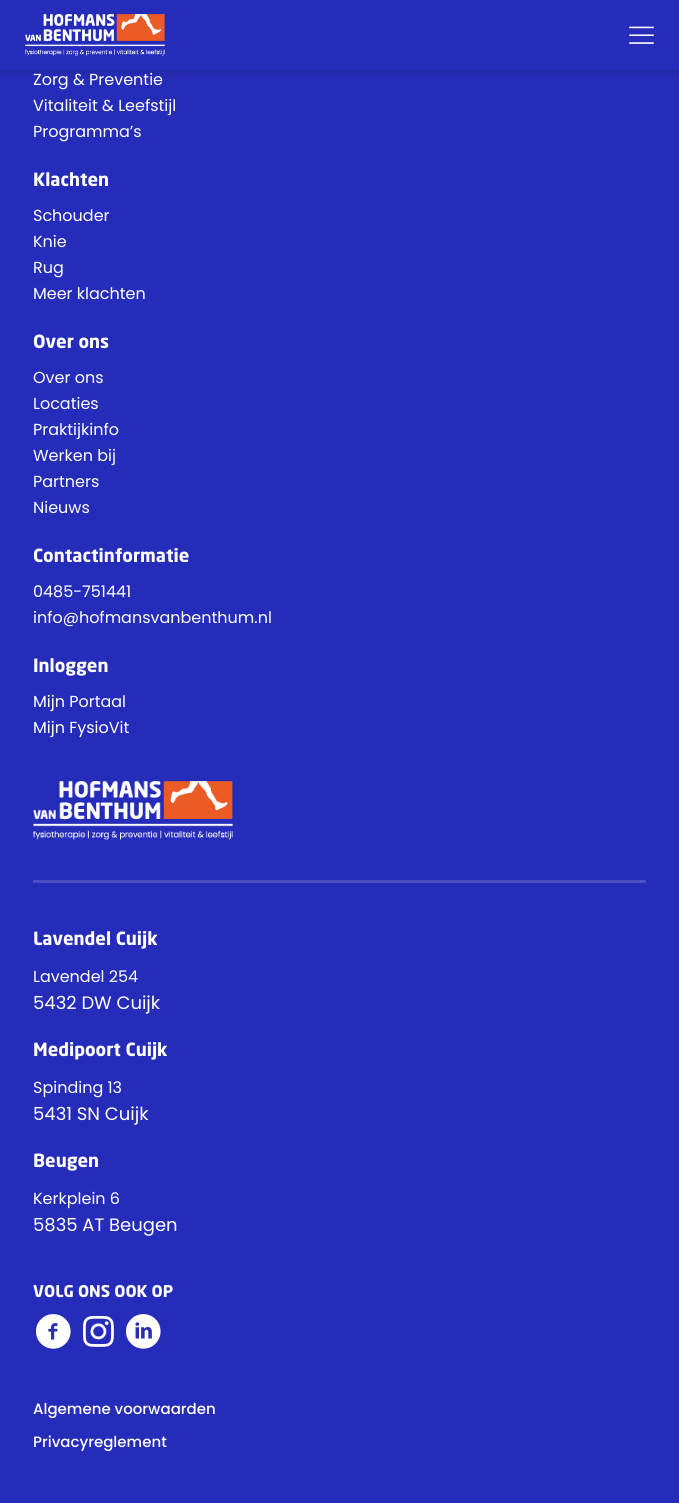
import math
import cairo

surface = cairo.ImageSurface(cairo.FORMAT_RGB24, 679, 1503)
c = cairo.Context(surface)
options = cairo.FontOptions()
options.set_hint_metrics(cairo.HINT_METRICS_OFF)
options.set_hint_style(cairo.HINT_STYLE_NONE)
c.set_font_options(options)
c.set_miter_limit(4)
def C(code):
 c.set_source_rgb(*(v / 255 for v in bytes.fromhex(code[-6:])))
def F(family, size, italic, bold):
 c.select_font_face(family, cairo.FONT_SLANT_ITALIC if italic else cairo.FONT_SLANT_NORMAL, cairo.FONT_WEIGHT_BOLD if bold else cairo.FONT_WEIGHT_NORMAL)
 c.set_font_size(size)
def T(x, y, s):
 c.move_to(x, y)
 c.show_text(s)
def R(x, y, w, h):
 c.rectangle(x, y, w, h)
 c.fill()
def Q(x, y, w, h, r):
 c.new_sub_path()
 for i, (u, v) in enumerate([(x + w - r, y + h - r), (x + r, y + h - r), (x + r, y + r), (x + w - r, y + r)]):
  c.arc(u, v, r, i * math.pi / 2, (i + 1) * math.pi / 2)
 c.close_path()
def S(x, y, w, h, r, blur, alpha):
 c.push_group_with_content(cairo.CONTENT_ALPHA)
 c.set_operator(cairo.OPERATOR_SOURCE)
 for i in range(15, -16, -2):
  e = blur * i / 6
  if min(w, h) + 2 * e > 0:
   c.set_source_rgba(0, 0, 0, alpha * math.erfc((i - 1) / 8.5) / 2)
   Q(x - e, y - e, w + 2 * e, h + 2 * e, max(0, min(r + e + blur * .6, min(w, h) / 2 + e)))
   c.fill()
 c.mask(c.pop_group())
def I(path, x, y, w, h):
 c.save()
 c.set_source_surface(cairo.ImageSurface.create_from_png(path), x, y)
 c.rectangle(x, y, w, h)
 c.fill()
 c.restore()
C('262cba')
c.paint()
C('000000')
S(0,0,679,70,0,5,.25)
C('262cba')
R(0,0,679,70)
I('1.png',25,14,140,42)
I('2.png',629,26,25,18)
F('Poppins',16,0,0)
C('ffffff')
T(33,85,'Zorg & Preventie')
T(33,111,'Vitaliteit & Leefstijl')
T(33,137,'Programma’s')
F('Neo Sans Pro',18,0,1)
T(33,186,'Klachten')
F('Poppins',16,0,0)
T(33,221,'Schouder')
T(33,247,'Knie')
T(33,273,'Rug')
T(33,299,'Meer klachten')
F('Neo Sans Pro',18,0,1)
T(33,348,'Over ons')
F('Poppins',16,0,0)
T(33,383,'Over ons')
T(33,409,'Locaties')
T(33,435,'Praktijkinfo')
T(33,461,'Werken bij')
T(33,487,'Partners')
T(33,513,'Nieuws')
F('Neo Sans Pro',18,0,1)
T(33,562,'Contactinformatie')
F('Poppins',16,0,0)
T(33,597,'0485-751441')
T(33,623,'info@hofmansvanbenthum.nl')
F('Neo Sans Pro',18,0,1)
T(33,672,'Inloggen')
F('Poppins',16,0,0)
T(33,707,'Mijn Portaal')
T(33,733,'Mijn FysioVit')
I('3.png',33,781,200,59)
C('4c50c2')
R(33,880,613,3)
F('Neo Sans Pro',18,0,1)
C('ffffff')
T(33,945,'Lavendel Cuijk')
F('Poppins',16,0,0)
T(33,982,'Lavendel 254')
F('Poppins',18,0,0)
T(33,1009,'5432 DW Cuijk')
F('Neo Sans Pro',18,0,1)
T(33,1056,'Medipoort Cuijk')
F('Poppins',16,0,0)
T(33,1093,'Spinding 13')
F('Poppins',18,0,0)
T(33,1120,'5431 SN Cuijk')
F('Neo Sans Pro',18,0,1)
T(33,1167,'Beugen')
F('Poppins',16,0,0)
T(33,1204,'Kerkplein 6')
F('Poppins',18,0,0)
T(33,1231,'5835 AT Beugen')
F('Neo Sans Pro',16,0,1)
T(33,1297,'VOLG ONS OOK OP')
I('4.png',36,1314,35,35)
I('5.png',83,1315,31,32)
I('6.png',126,1314,35,35)
F('Poppins Medium',15,0,0)
T(33,1414,'Algemene voorwaarden')
T(33,1447,'Privacyreglement')
surface.write_to_png('o.png')
